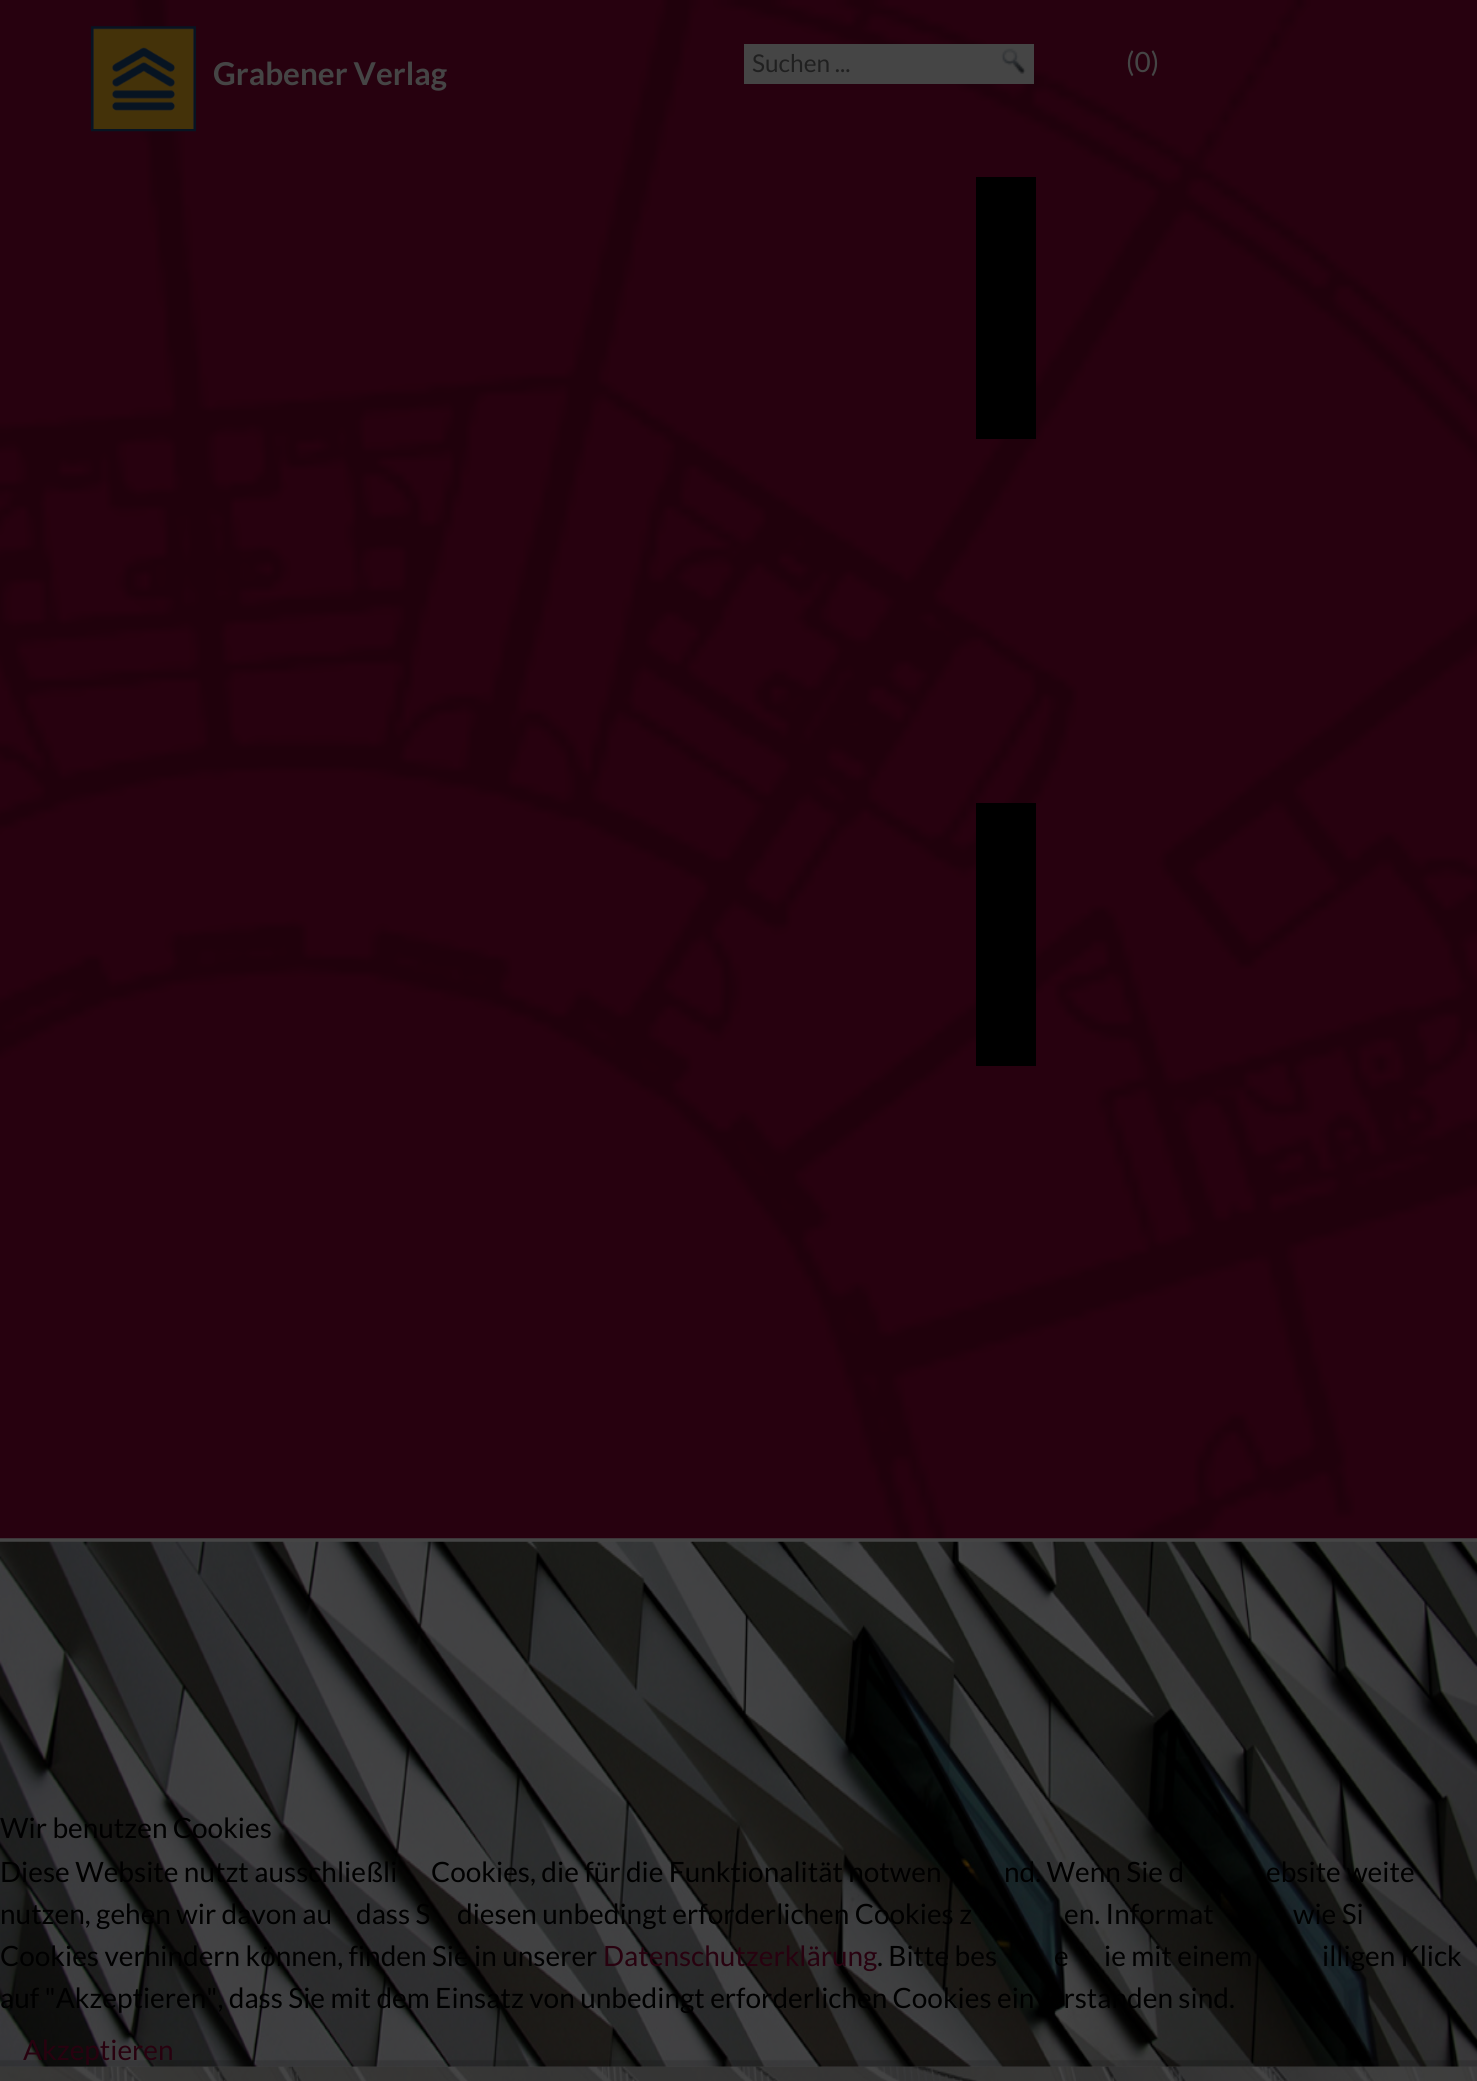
import math
import cairo

surface = cairo.ImageSurface(cairo.FORMAT_RGB24, 1477, 2081)
c = cairo.Context(surface)
options = cairo.FontOptions()
options.set_hint_metrics(cairo.HINT_METRICS_OFF)
options.set_hint_style(cairo.HINT_STYLE_NONE)
c.set_font_options(options)
c.set_miter_limit(4)
def C(code):
 c.set_source_rgb(*(v / 255 for v in bytes.fromhex(code[-6:])))
def F(family, size, italic, bold):
 c.select_font_face(family, cairo.FONT_SLANT_ITALIC if italic else cairo.FONT_SLANT_NORMAL, cairo.FONT_WEIGHT_BOLD if bold else cairo.FONT_WEIGHT_NORMAL)
 c.set_font_size(size)
def T(x, y, s):
 c.move_to(x, y)
 c.show_text(s)
def R(x, y, w, h):
 c.rectangle(x, y, w, h)
 c.fill()
def I(path, x, y, w, h):
 c.save()
 c.set_source_surface(cairo.ImageSurface.create_from_png(path), x, y)
 c.rectangle(x, y, w, h)
 c.fill()
 c.restore()
C('454545')
c.paint()
I('1.png',0,0,1477,1539)
I('2.png',91,26,105,106)
F('Lato',31.5,0,1)
C('454545')
T(213,85,'Grabener Verlag')
R(744,44,290,40)
F('Lato',24.5,0,0)
C('202020')
T(752,72,'Suchen ...')
I('3.png',1001,48,25,26)
F('Lato',28,0,0)
C('454545')
T(1126,72,'(0)')
C('000000')
R(976,177,60,262)
R(976,803,60,263)
I('4.png',0,1541,1477,526)
I('5.png',0,2066,1477,15)
T(0,1838,'Wir benutzen Cookies')
T(0,1882,'Diese Website nutzt ausschließli')
T(431,1882,'Cookies, die für die Funktionalität notwen')
T(1004,1882,'nd. Wenn Sie d')
T(1266,1882,'ebsite weite')
T(0,1924,'nutzen, gehen wir davon au')
T(356,1924,'dass S')
T(457,1924,'diesen unbedingt erforderlichen Cookies z')
T(1064,1924,'en. Informat')
T(1293,1924,'wie Si')
T(0,1966,'Cookies verhindern können, finden Sie in unserer')
C('28010f')
T(603,1966,'Datenschutzerklärung')
C('000000')
T(877,1966,'. Bitte bes')
T(1054,1966,'e')
T(1104,1966,'ie mit einem')
T(1322,1966,'illigen Klick')
T(0,2008,'auf "Akzeptieren", dass Sie mit dem Einsatz von unbedingt erforderlichen Cookies einverstanden sind.')
C('28010f')
T(23,2060,'Akzeptieren')
surface.write_to_png('o.png')
